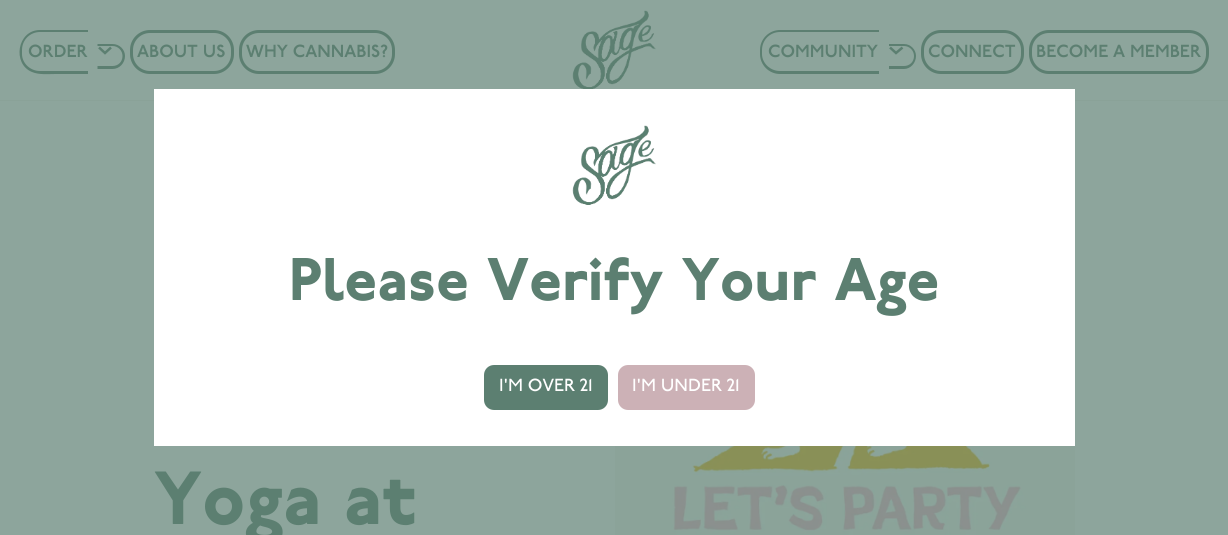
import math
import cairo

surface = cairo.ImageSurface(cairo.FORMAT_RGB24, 1228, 535)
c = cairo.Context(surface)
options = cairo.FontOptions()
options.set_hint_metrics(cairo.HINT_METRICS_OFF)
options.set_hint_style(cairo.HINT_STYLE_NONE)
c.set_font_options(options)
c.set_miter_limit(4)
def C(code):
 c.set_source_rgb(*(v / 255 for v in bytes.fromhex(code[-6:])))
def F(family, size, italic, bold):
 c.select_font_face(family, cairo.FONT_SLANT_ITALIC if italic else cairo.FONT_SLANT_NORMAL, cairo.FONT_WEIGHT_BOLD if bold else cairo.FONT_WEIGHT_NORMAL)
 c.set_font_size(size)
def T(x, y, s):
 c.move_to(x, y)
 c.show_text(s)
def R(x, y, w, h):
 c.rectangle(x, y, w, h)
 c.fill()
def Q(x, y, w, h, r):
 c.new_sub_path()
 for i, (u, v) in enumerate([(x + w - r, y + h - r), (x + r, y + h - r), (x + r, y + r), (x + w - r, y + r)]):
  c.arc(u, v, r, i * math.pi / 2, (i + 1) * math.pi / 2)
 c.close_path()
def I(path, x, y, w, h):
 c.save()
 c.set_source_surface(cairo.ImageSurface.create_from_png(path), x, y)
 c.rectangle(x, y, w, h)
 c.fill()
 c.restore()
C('8da59c')
c.paint()
C('8aa298')
R(0,100,1228,1)
C('5c7f71')
c.set_fill_rule(cairo.FILL_RULE_EVEN_ODD)
c.new_path()
c.move_to(40,30)
c.line_to(88,30)
c.line_to(88,74)
c.line_to(56,74)
c.curve_to(48,74,39,75,32,72)
c.curve_to(12,64,17,30,40,30)
c.close_path()
c.move_to(40,32)
c.line_to(88,32)
c.line_to(88,71)
c.line_to(40,71)
c.curve_to(30,71,22,63,22,54)
c.line_to(22,50)
c.curve_to(22,40,30,32,40,32)
c.close_path()
c.fill()
c.new_path()
c.move_to(97.5,44)
c.line_to(112.5,44)
c.curve_to(119.5,44,125,49.5,125,56)
c.curve_to(125,63,119.5,69,112.5,69)
c.line_to(97.5,69)
c.close_path()
c.move_to(97.5,46)
c.line_to(112.5,46)
c.curve_to(118,46,122.5,50.5,122.5,56)
c.curve_to(122.5,62,118,66,112.5,66)
c.line_to(97.5,66)
c.close_path()
c.fill()
F('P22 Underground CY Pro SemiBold',17.5,0,0)
T(28,57,'ORDER')
c.new_path()
c.move_to(99,47.5)
c.line_to(105,53)
c.line_to(111,47.5)
c.set_line_width(2.5)
c.stroke()
Q(131.5,31.5,101,41,18.5)
c.set_line_width(3)
c.stroke()
T(137,57,'ABOUT US')
Q(240.5,31.5,153,41,18.5)
c.stroke()
T(246,57,'WHY CANNABIS?')
I('1.png',572,10,84,79)
c.new_path()
c.move_to(780,30)
c.line_to(879,30)
c.line_to(879,74)
c.line_to(780,74)
c.curve_to(769,74,760,65,760,54)
c.line_to(760,50)
c.curve_to(760,39,769,30,780,30)
c.close_path()
c.move_to(780,32)
c.line_to(879,32)
c.line_to(879,71)
c.line_to(780,71)
c.curve_to(770,71,762,63,762,54)
c.line_to(762,50)
c.curve_to(762,40,770,32,780,32)
c.close_path()
c.fill()
c.new_path()
c.move_to(889,44)
c.line_to(904,44)
c.curve_to(910.5,44,916,49.5,916,56)
c.curve_to(916,63,910.5,69,904,69)
c.line_to(889,69)
c.close_path()
c.move_to(889,46)
c.line_to(904,46)
c.curve_to(909.5,46,914,50.5,914,56)
c.curve_to(914,62,909.5,66,904,66)
c.line_to(889,66)
c.close_path()
c.fill()
T(768,57,'COMMUNITY')
c.new_path()
c.move_to(890,47.5)
c.line_to(896,53)
c.line_to(902.5,47.5)
c.set_line_width(2.5)
c.stroke()
Q(922.5,31.5,100,41,18.5)
c.set_line_width(3)
c.stroke()
T(928,57,'CONNECT')
Q(1030.5,31.5,177,41,18.5)
c.stroke()
T(1036,57,'BECOME A MEMBER')
C('ffffff')
R(154,89,921,357)
I('2.png',572,125,84,80)
F('P22 Underground CY Pro Black',60,0,0)
C('5c7f71')
T(289,300,'Please Verify Your Age')
Q(484,365,124,45,10)
c.fill()
F('P22 Underground CY Pro Medium',17.5,0,0)
C('ffffff')
T(499,391,'I\'M OVER 21')
C('ccb1b6')
Q(618,365,137,45,10)
c.fill()
C('ffffff')
T(632,391,'I\'M UNDER 21')
F('P22 Underground CY Pro Black',75,0,0)
C('5c7f71')
T(154,524,'Yoga at')
I('3.png',615,446,460,89)
surface.write_to_png('o.png')
